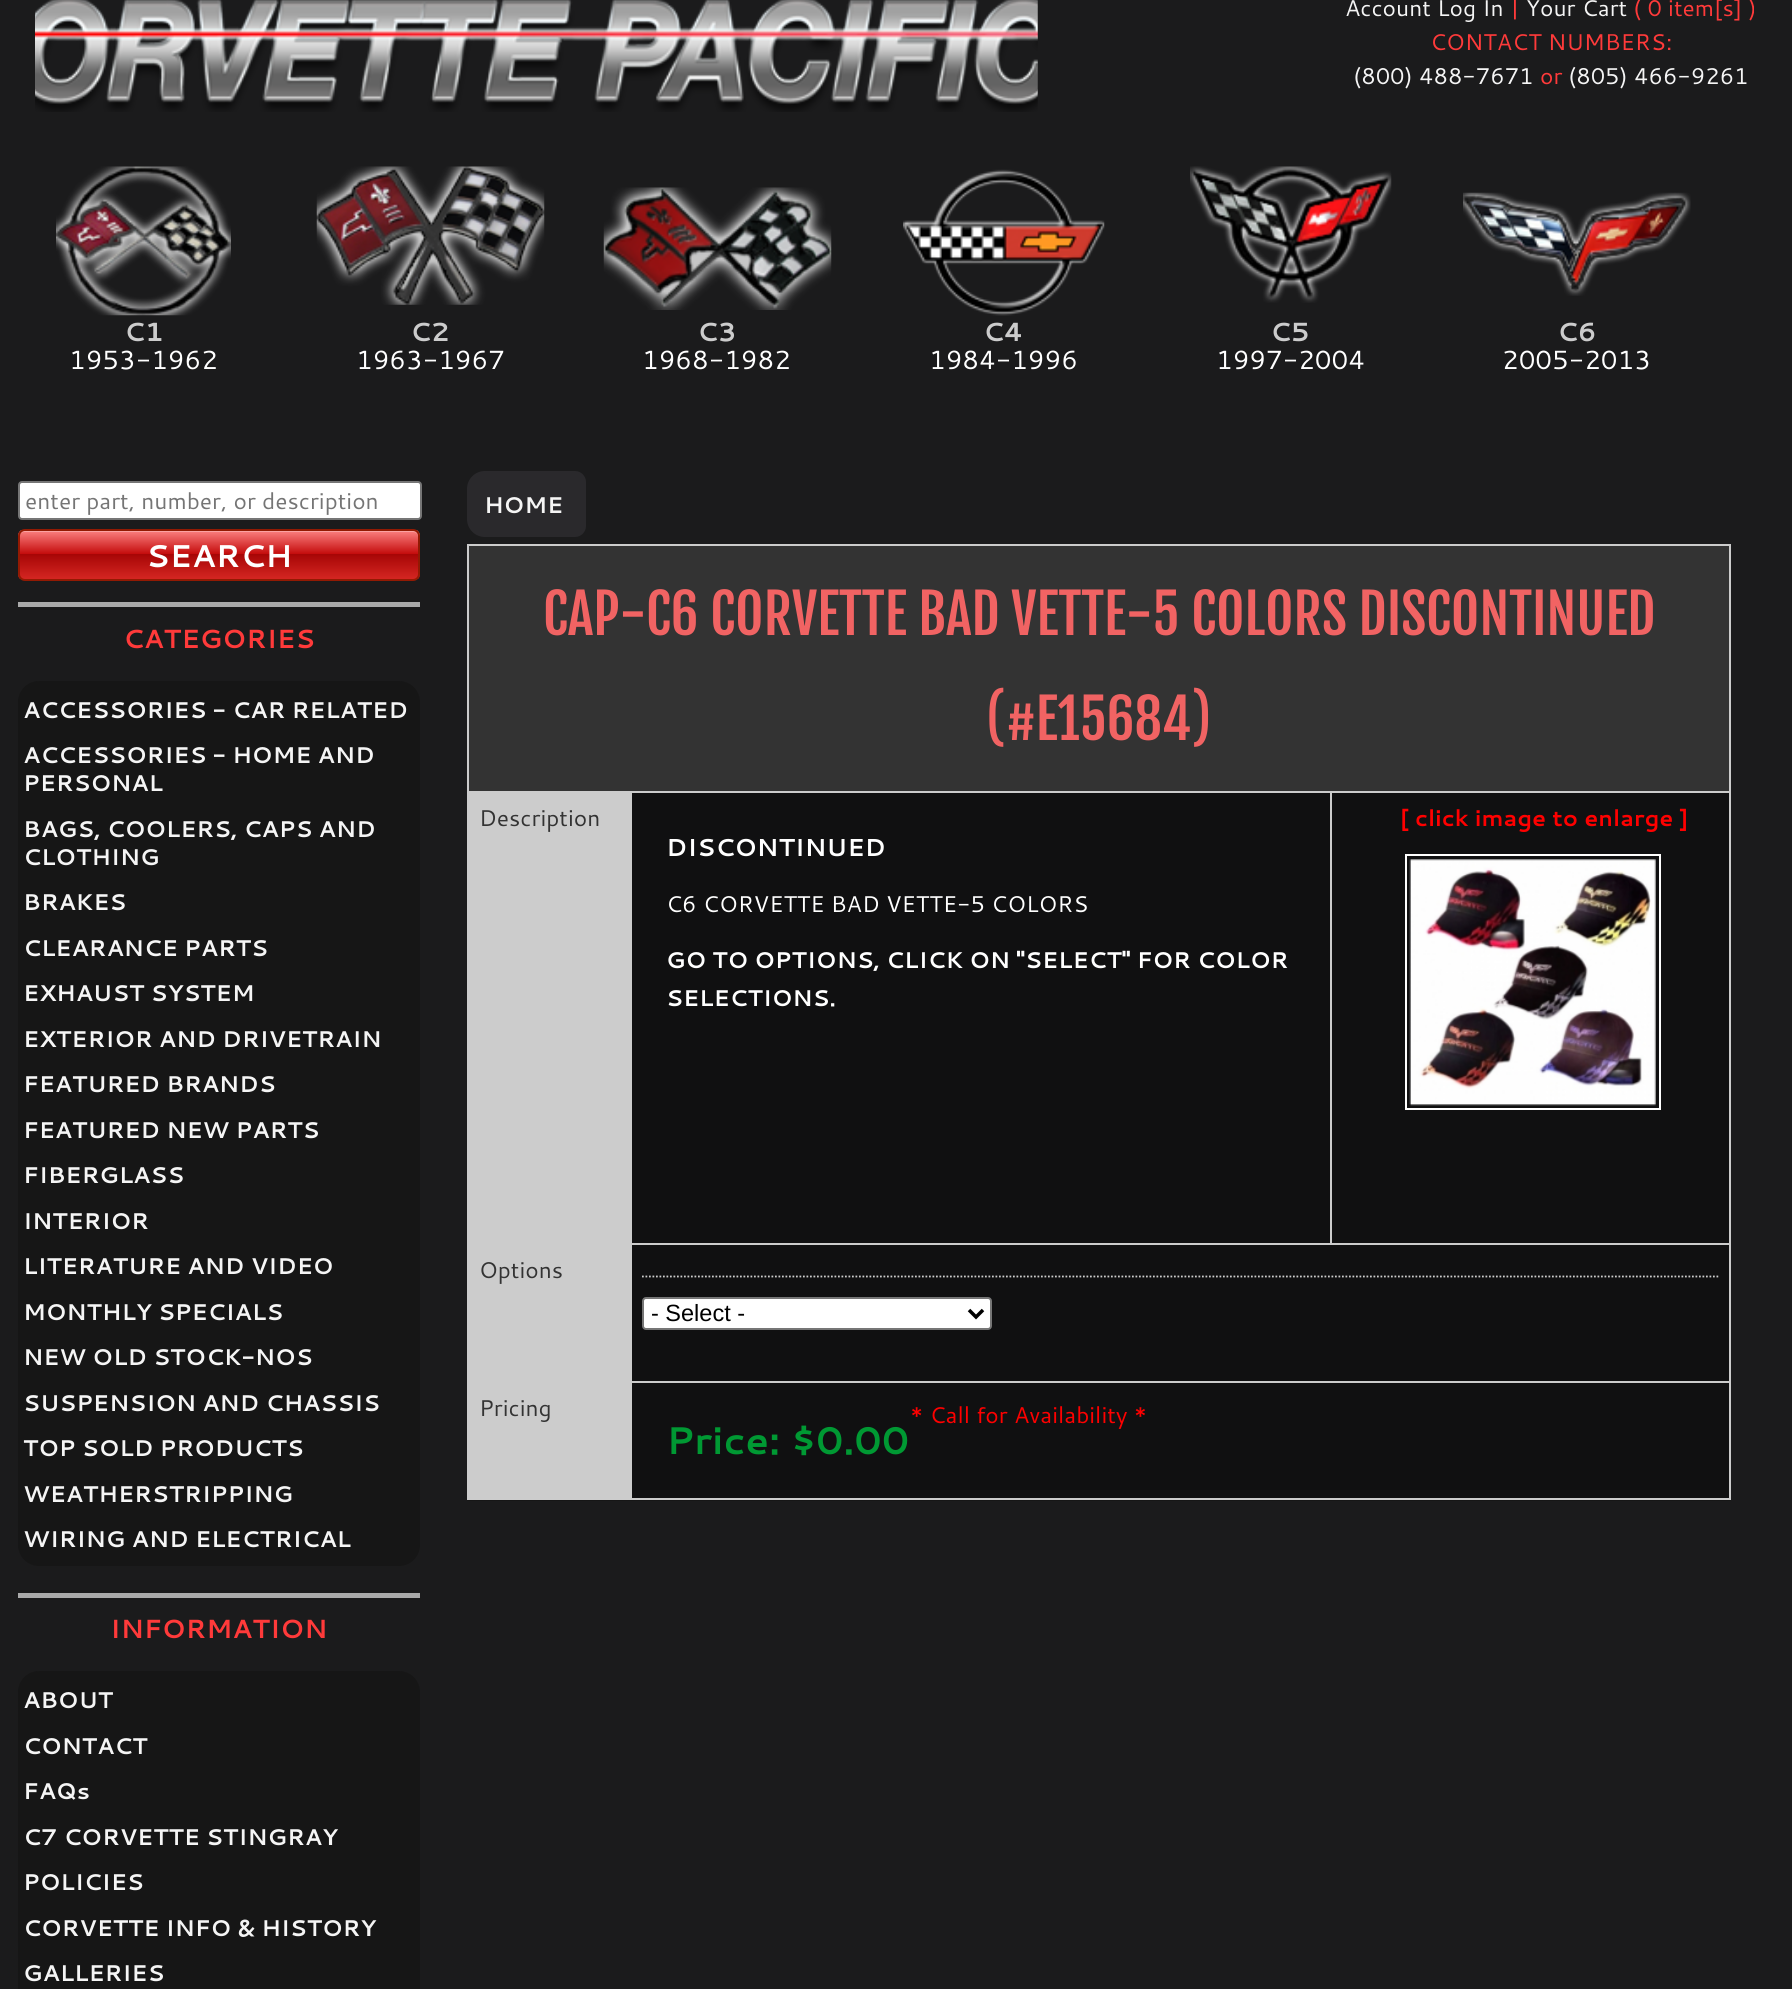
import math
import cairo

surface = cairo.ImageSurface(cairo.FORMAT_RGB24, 1792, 1989)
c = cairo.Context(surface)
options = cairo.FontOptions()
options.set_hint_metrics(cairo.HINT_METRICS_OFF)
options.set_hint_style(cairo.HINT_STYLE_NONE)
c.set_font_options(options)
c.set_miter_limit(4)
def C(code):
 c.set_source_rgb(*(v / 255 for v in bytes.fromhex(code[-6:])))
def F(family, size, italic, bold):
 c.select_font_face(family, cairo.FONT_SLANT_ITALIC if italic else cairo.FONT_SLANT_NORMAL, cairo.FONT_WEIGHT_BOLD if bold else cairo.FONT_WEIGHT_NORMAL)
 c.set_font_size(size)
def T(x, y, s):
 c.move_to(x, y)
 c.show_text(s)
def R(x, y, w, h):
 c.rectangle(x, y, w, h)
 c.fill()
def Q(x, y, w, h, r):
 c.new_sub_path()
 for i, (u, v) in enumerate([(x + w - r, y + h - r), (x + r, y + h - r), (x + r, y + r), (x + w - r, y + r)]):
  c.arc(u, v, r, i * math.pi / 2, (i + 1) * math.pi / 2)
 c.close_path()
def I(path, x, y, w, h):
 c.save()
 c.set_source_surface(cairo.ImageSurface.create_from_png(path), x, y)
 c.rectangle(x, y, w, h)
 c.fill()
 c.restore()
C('1b1b1c')
c.paint()
I('1.png',35,0,1003,112)
F('Cantarell',22.75,0,0)
C('f5f5f5')
T(1345,16,'Account Log In')
C('ff3a3a')
T(1510,16,'|')
C('f5f5f5')
T(1526,16,'Your Cart')
C('ff3a3a')
T(1633,16,'( 0 item[s] )')
T(1430,50,'CONTACT NUMBERS:')
C('f5f5f5')
T(1353,84,'(800) 488-7671')
C('ff3a3a')
T(1540,84,'or')
C('f5f5f5')
T(1568,84,'(805) 466-9261')
I('2.png',56,166,175,150)
F('Cantarell',26.25,0,1)
C('cccccc')
T(124,341,'C1')
F('Cantarell',26.25,0,0)
C('ffffff')
T(69,369,'1953-1962')
I('3.png',316,166,229,139)
F('Cantarell',26.25,0,1)
C('cccccc')
T(410,341,'C2')
F('Cantarell',26.25,0,0)
C('ffffff')
T(356,369,'1963-1967')
I('4.png',603,187,229,123)
F('Cantarell',26.25,0,1)
C('cccccc')
T(697,341,'C3')
F('Cantarell',26.25,0,0)
C('ffffff')
T(642,369,'1968-1982')
I('5.png',903,169,202,147)
F('Cantarell',26.25,0,1)
C('cccccc')
T(983,341,'C4')
F('Cantarell',26.25,0,0)
C('ffffff')
T(929,369,'1984-1996')
I('6.png',1190,166,202,137)
F('Cantarell',26.25,0,1)
C('cccccc')
T(1270,341,'C5')
F('Cantarell',26.25,0,0)
C('ffffff')
T(1216,369,'1997-2004')
I('7.png',1463,192,228,104)
F('Cantarell',26.25,0,1)
C('cccccc')
T(1557,341,'C6')
F('Cantarell',26.25,0,0)
C('ffffff')
T(1502,369,'2005-2013')
Q(19,482,402,37,3)
c.fill_preserve()
C('767676')
c.stroke()
F('Cantarell',22.75,0,0)
C('757575')
T(25,509,'enter part, number, or description')
c.save()
Q(18,529,402,52,7)
c.clip()
gradient = cairo.LinearGradient(219,530,219,579)
gradient.add_color_stop_rgba(0,0.992,0.514,0.514,1)
gradient.add_color_stop_rgba(.5,0.765,0.035,0.035,1)
gradient.add_color_stop_rgba(.5,0.655,0.024,0.024,1)
gradient.add_color_stop_rgba(1,0.831,0.149,0.133,1)
c.set_source(gradient)
R(18,530,402,49)
c.restore()
c.set_source_rgba(1,1,1,0.3)
c.new_path()
c.move_to(24,532)
c.line_to(413,532)
c.curve_to(416,532,418,534,418,537)
c.line_to(418,535)
c.curve_to(418,532,416,530,413,530)
c.line_to(24,530)
c.curve_to(21,530,19,532,19,535)
c.line_to(19,537)
c.curve_to(19,534,22,532,24,532)
c.close_path()
c.fill()
Q(19,530,400,50,6)
C('931a03')
c.stroke()
F('Cantarell',31.5,0,1)
C('ffffff')
T(146,567,'SEARCH')
C('aaaaaa')
R(18,602,402,5)
F('Cantarell',26.25,0,1)
C('ff3a3a')
T(123,648,'CATEGORIES')
C('161616')
Q(18,681,402,885,21)
c.fill()
F('Cantarell',22.75,0,1)
C('f5f5f5')
T(23,718,'ACCESSORIES - CAR RELATED')
T(23,763,'ACCESSORIES - HOME AND')
T(23,791,'PERSONAL')
T(23,837,'BAGS, COOLERS, CAPS AND')
T(23,865,'CLOTHING')
T(23,910,'BRAKES')
T(23,956,'CLEARANCE PARTS')
T(23,1001,'EXHAUST SYSTEM')
T(23,1047,'EXTERIOR AND DRIVETRAIN')
T(23,1092,'FEATURED BRANDS')
T(23,1138,'FEATURED NEW PARTS')
T(23,1183,'FIBERGLASS')
T(23,1229,'INTERIOR')
T(23,1274,'LITERATURE AND VIDEO')
T(23,1320,'MONTHLY SPECIALS')
T(23,1365,'NEW OLD STOCK-NOS')
T(23,1411,'SUSPENSION AND CHASSIS')
T(23,1456,'TOP SOLD PRODUCTS')
T(23,1502,'WEATHERSTRIPPING')
T(23,1547,'WIRING AND ELECTRICAL')
C('aaaaaa')
R(18,1593,402,5)
F('Cantarell',26.25,0,1)
C('ff3a3a')
T(110,1638,'INFORMATION')
C('161616')
Q(18,1671,402,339,21)
c.fill()
F('Cantarell',22.75,0,1)
C('f5f5f5')
T(23,1708,'ABOUT')
T(23,1754,'CONTACT')
T(23,1799,'FAQs')
T(23,1845,'C7 CORVETTE STINGRAY')
T(23,1890,'POLICIES')
T(23,1936,'CORVETTE INFO & HISTORY')
T(23,1981,'GALLERIES')
C('2a292c')
c.new_path()
c.move_to(485,471)
c.line_to(564,471)
c.line_to(564,537)
c.line_to(485,537)
c.curve_to(475,537,467,529,467,519)
c.line_to(467,489)
c.curve_to(467,479,475,471,485,471)
c.close_path()
c.fill()
C('f5f5f5')
T(484,513,'HOME')
C('2a292c')
c.new_path()
c.move_to(564,471)
c.line_to(575,471)
c.curve_to(581,471,586,476,586,482)
c.line_to(586,526)
c.curve_to(586,532,581,537,575,537)
c.line_to(564,537)
c.close_path()
c.fill()
I('8.png',467,793,1264,708)
C('cccccc')
R(1729,544,2,956)
R(467,1498,1264,2)
C('333333')
R(469,546,1260,245)
C('cccccc')
R(467,544,1262,2)
R(467,544,2,247)
F('Fjalla One',54.6,0,0)
C('f16363')
T(543,635,'CAP-C6 CORVETTE BAD VETTE-5 COLORS DISCONTINUED')
T(986,740,'(#E15684)')
C('cccccc')
R(467,791,163,707)
F('Cantarell',22.75,0,0)
C('333333')
T(479,826,'Description')
C('cccccc')
R(630,791,1099,2)
R(1330,791,2,452)
F('Cantarell',22.75,0,1)
C('ff0000')
T(1400,826,'[ click image to enlarge ]')
c.rectangle(1406,855,254,254)
C('ffffff')
c.stroke()
I('9.png',1409,859,247,247)
C('cccccc')
R(630,791,2,452)
F('Cantarell',24.5,0,1)
C('ffffff')
T(666,856,'DISCONTINUED')
F('Cantarell',22.75,0,0)
T(666,912,'C6 CORVETTE BAD VETTE-5 COLORS')
F('Cantarell',22.75,0,1)
T(666,968,'GO TO OPTIONS, CLICK ON "SELECT" FOR COLOR')
T(666,1006,'SELECTIONS.')
F('Cantarell',22.75,0,0)
C('333333')
T(479,1278,'Options')
C('cccccc')
R(630,1243,1099,2)
R(630,1243,2,138)
c.new_path()
c.move_to(642,1276.5)
c.line_to(1718.5,1276.5)
c.set_line_width(1.8)
c.set_dash([1.75,1.75])
c.stroke()
C('ffffff')
Q(643,1298,348,31,3)
c.fill_preserve()
C('767676')
c.set_line_width(2)
c.set_dash([])
c.stroke()
c.new_path()
c.move_to(969,1310)
c.line_to(976,1317)
c.line_to(983,1310)
C('000000')
c.set_line_width(3.5)
c.stroke()
F('Liberation Sans',23.5,0,0)
T(651,1321,'- Select -')
F('Cantarell',22.75,0,0)
C('333333')
T(479,1416,'Pricing')
C('cccccc')
R(630,1381,1099,2)
R(630,1381,2,117)
C('ff0000')
T(910,1423,'* Call for Availability *')
F('Cantarell',38.5,0,1)
C('009933')
T(666,1454,'Price: $0.00')
surface.write_to_png('o.png')
